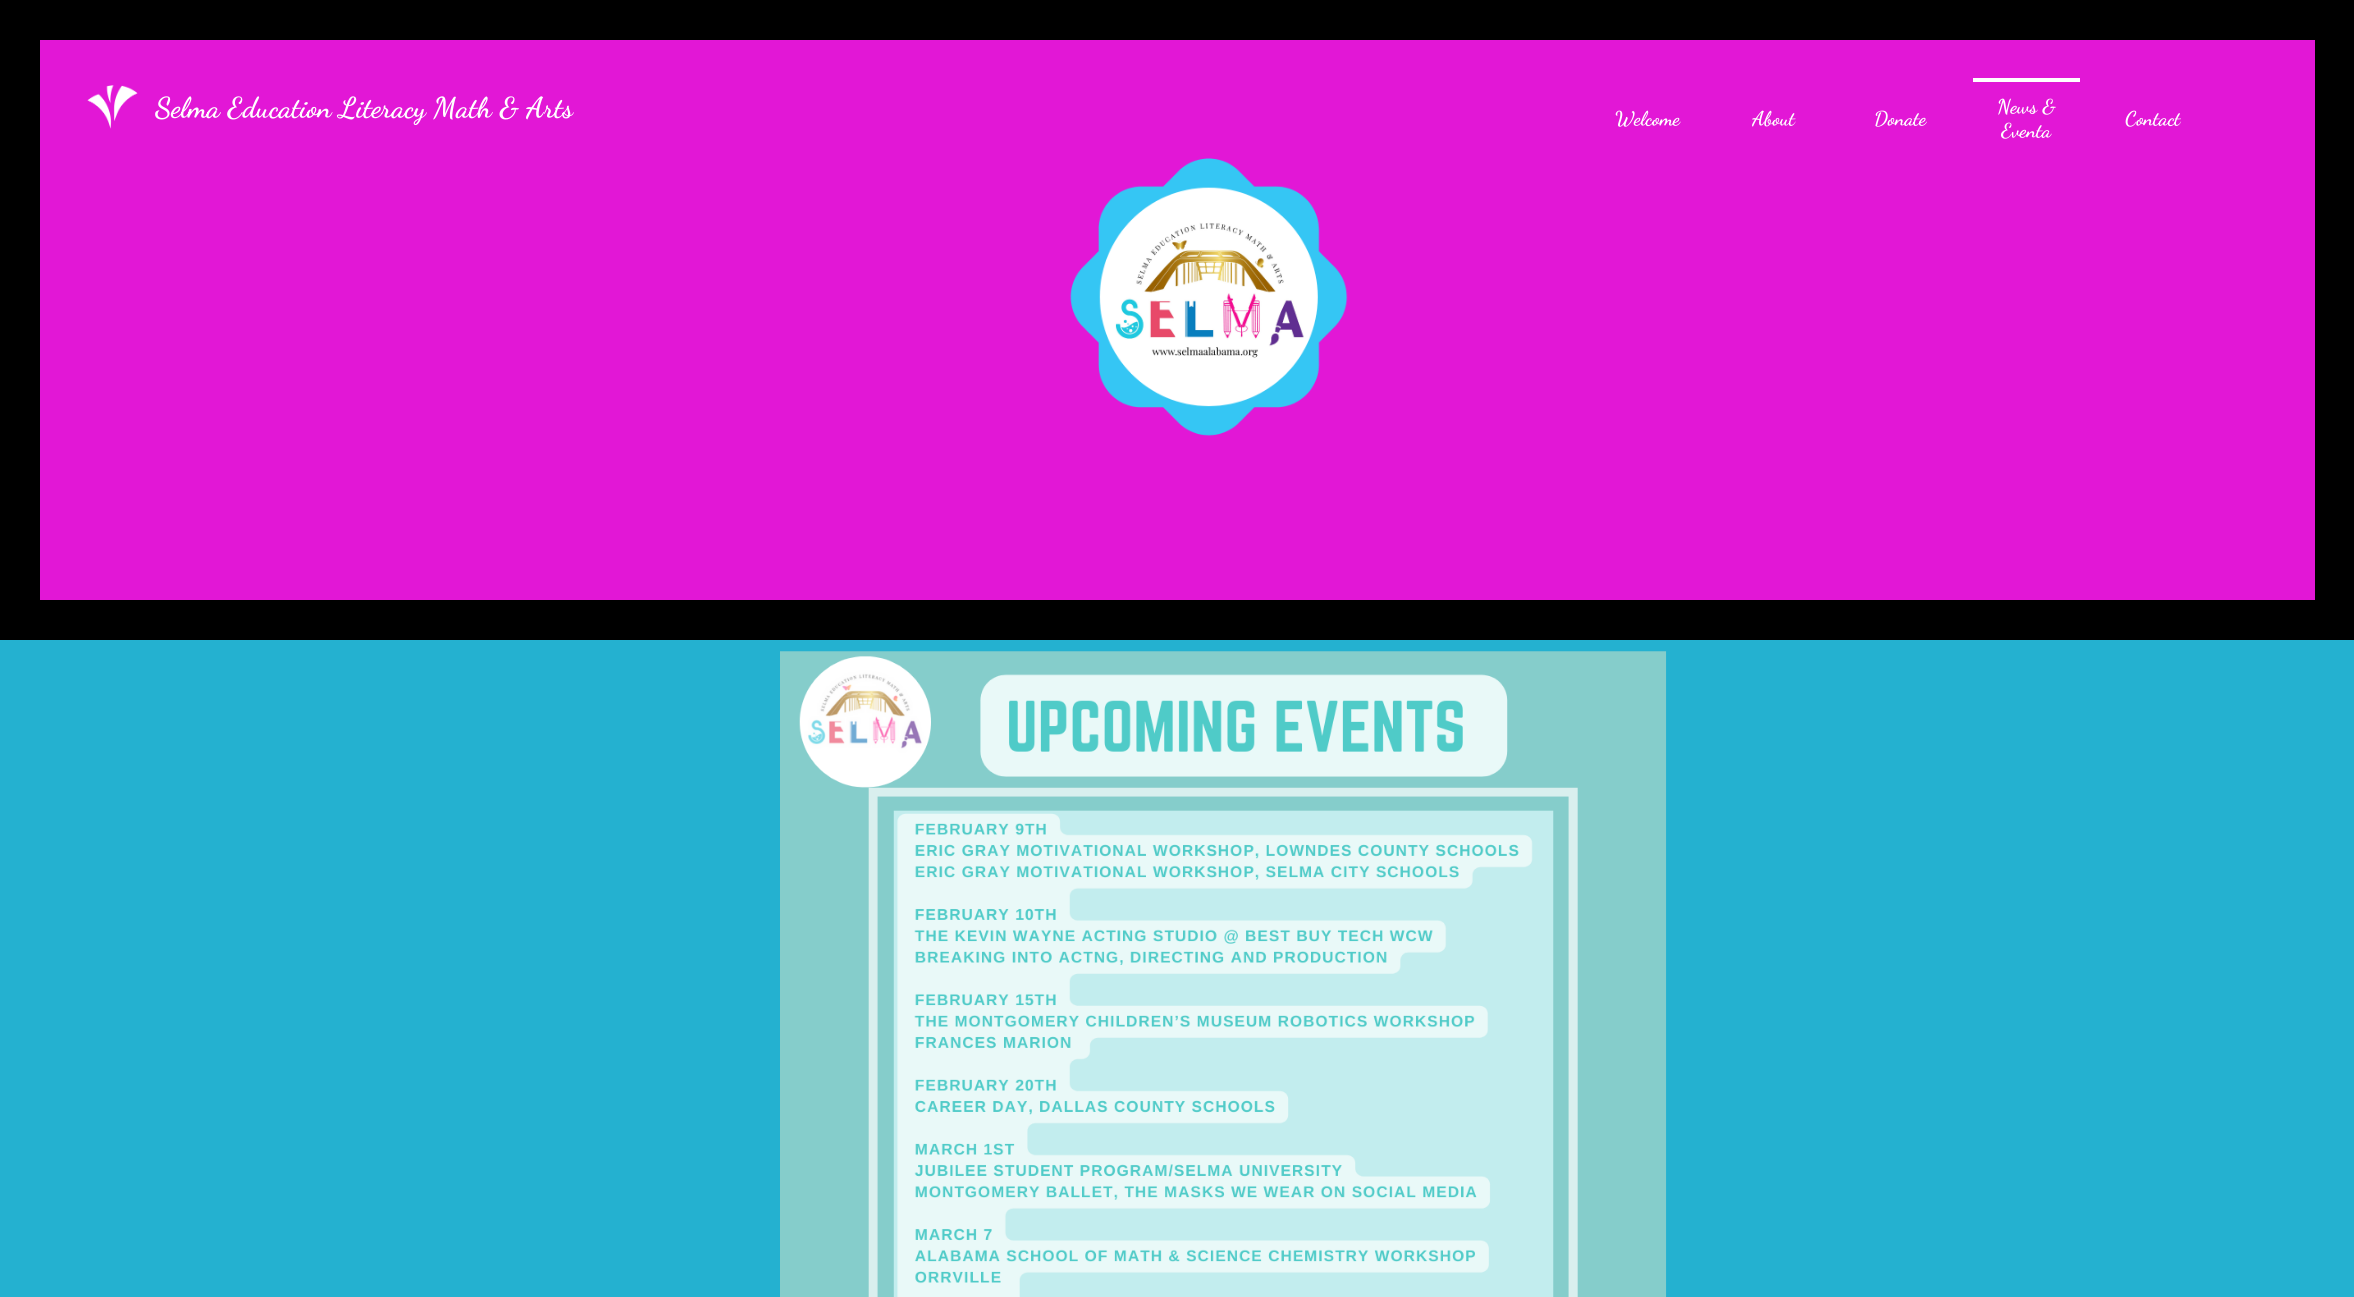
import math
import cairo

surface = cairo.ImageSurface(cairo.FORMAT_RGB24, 2354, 1297)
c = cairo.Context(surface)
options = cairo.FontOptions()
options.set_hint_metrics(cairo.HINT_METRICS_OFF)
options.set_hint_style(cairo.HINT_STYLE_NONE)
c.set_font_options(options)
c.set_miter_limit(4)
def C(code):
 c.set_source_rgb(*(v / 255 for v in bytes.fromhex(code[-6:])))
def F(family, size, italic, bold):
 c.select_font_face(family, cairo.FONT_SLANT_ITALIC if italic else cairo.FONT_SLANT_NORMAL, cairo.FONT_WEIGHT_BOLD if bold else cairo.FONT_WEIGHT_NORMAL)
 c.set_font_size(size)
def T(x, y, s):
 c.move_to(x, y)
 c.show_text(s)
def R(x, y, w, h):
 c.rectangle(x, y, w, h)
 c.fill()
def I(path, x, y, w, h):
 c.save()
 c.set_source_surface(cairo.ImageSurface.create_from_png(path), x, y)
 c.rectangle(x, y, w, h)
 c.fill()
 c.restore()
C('e217d6')
c.paint()
c.rectangle(20,20,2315,600)
C('000000')
c.set_line_width(40)
c.stroke()
I('1.png',87,85,51,44)
F('Dancing Script',28.75,0,1)
C('ffffff')
T(155,117,'Selma Education Literacy Math & Arts')
F('Dancing Script',20,0,1)
T(1615,125,'Welcome')
T(1752,125,'About')
T(1874,125,'Donate')
R(1973,78,107,4)
T(1997,113,'News &')
T(2001,137,'Eventa')
T(2125,125,'Contact')
I('2.png',1070,158,278,278)
C('24b1d0')
R(0,640,2354,657)
I('3.png',780,651,887,646)
surface.write_to_png('o.png')
